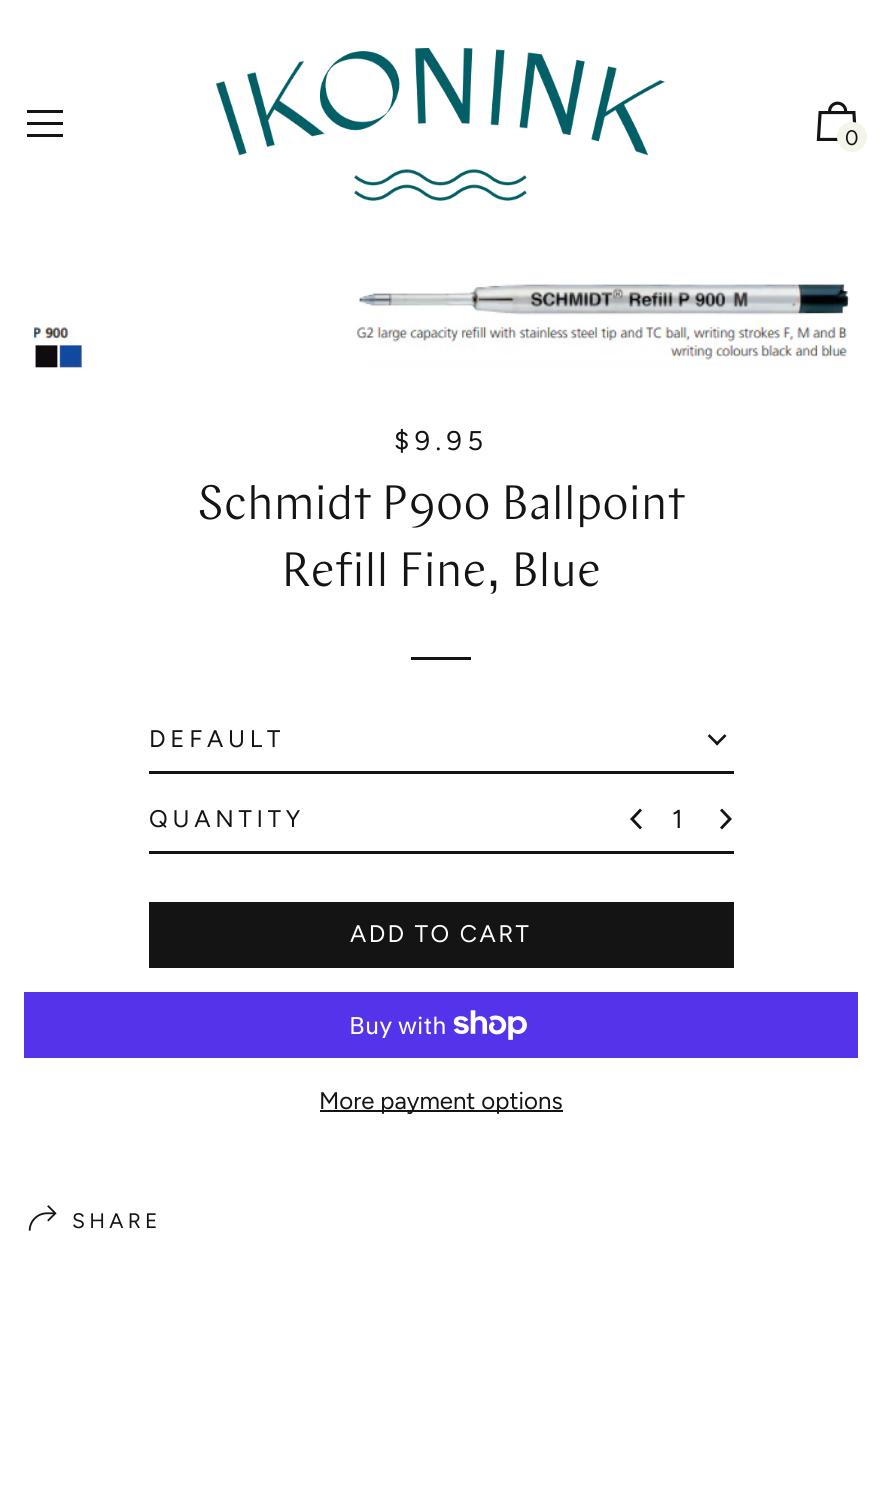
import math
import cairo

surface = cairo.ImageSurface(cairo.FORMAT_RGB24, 882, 1499)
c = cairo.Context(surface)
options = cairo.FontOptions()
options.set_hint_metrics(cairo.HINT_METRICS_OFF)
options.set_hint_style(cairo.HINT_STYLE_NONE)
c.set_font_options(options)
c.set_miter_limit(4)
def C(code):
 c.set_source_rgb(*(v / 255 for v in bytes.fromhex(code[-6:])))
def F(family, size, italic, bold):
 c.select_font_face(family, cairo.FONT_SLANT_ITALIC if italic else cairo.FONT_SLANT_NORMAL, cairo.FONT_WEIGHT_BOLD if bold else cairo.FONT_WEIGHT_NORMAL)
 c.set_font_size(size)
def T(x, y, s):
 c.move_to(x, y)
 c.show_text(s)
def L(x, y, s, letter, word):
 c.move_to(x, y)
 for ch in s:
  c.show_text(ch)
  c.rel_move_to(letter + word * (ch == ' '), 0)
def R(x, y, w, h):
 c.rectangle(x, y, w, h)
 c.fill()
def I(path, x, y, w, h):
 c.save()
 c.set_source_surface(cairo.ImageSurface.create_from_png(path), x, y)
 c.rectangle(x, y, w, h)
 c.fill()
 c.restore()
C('ffffff')
c.paint()
C('141414')
R(27,134,36,3)
R(27,122,36,3)
R(27,110,36,3)
I('1.png',216,48,449,153)
I('2.png',816,101,41,40)
C('f4f4ea')
c.arc(852,137,15,0,2 * math.pi)
c.fill()
F('Figtree',21,0,0)
C('141414')
T(845,145,'0')
I('3.png',33,283,817,88)
F('Figtree',27,0,0)
L(394,450,'$9.95',5.5,0)
F('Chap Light',48,0,0)
T(197,519,'Schmidt P900 Ballpoint')
T(281,586,'Refill Fine, Blue')
R(411,657,60,3)
I('4.png',707,734,20,12)
R(149,771,585,3)
F('Figtree',24,0,0)
L(149,747,'DEFAULT',4.75,0)
R(149,851,585,3)
L(149,827,'QUANTITY',4.75,0)
c.new_path()
c.move_to(642,827.5)
c.line_to(634,819)
c.line_to(642,810.5)
c.line_to(640,808.5)
c.line_to(630,819)
c.line_to(640,829.5)
c.close_path()
c.fill()
F('Figtree',26,0,0)
L(672,828,'1',5,0)
c.new_path()
c.move_to(720,810.5)
c.line_to(728,819)
c.line_to(720,827.5)
c.line_to(722,829.5)
c.line_to(732,819)
c.line_to(722,808.5)
c.close_path()
c.fill()
R(149,902,585,66)
F('Figtree',24,0,0)
C('ffffff')
L(350,942,'ADD TO CART',2.4,0)
C('5433eb')
R(24,992,834,66)
F('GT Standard',24,0,0)
C('ffffff')
T(349,1034,'Buy with')
I('5.png',453,1010,74,30)
C('141414')
R(320,1110,243,2)
F('Figtree',24,0,0)
T(319,1109,'More payment options')
I('6.png',28,1205,29,26)
F('Figtree',21,0,0)
L(72,1228,'SHARE',4.25,0)
surface.write_to_png('o.png')
